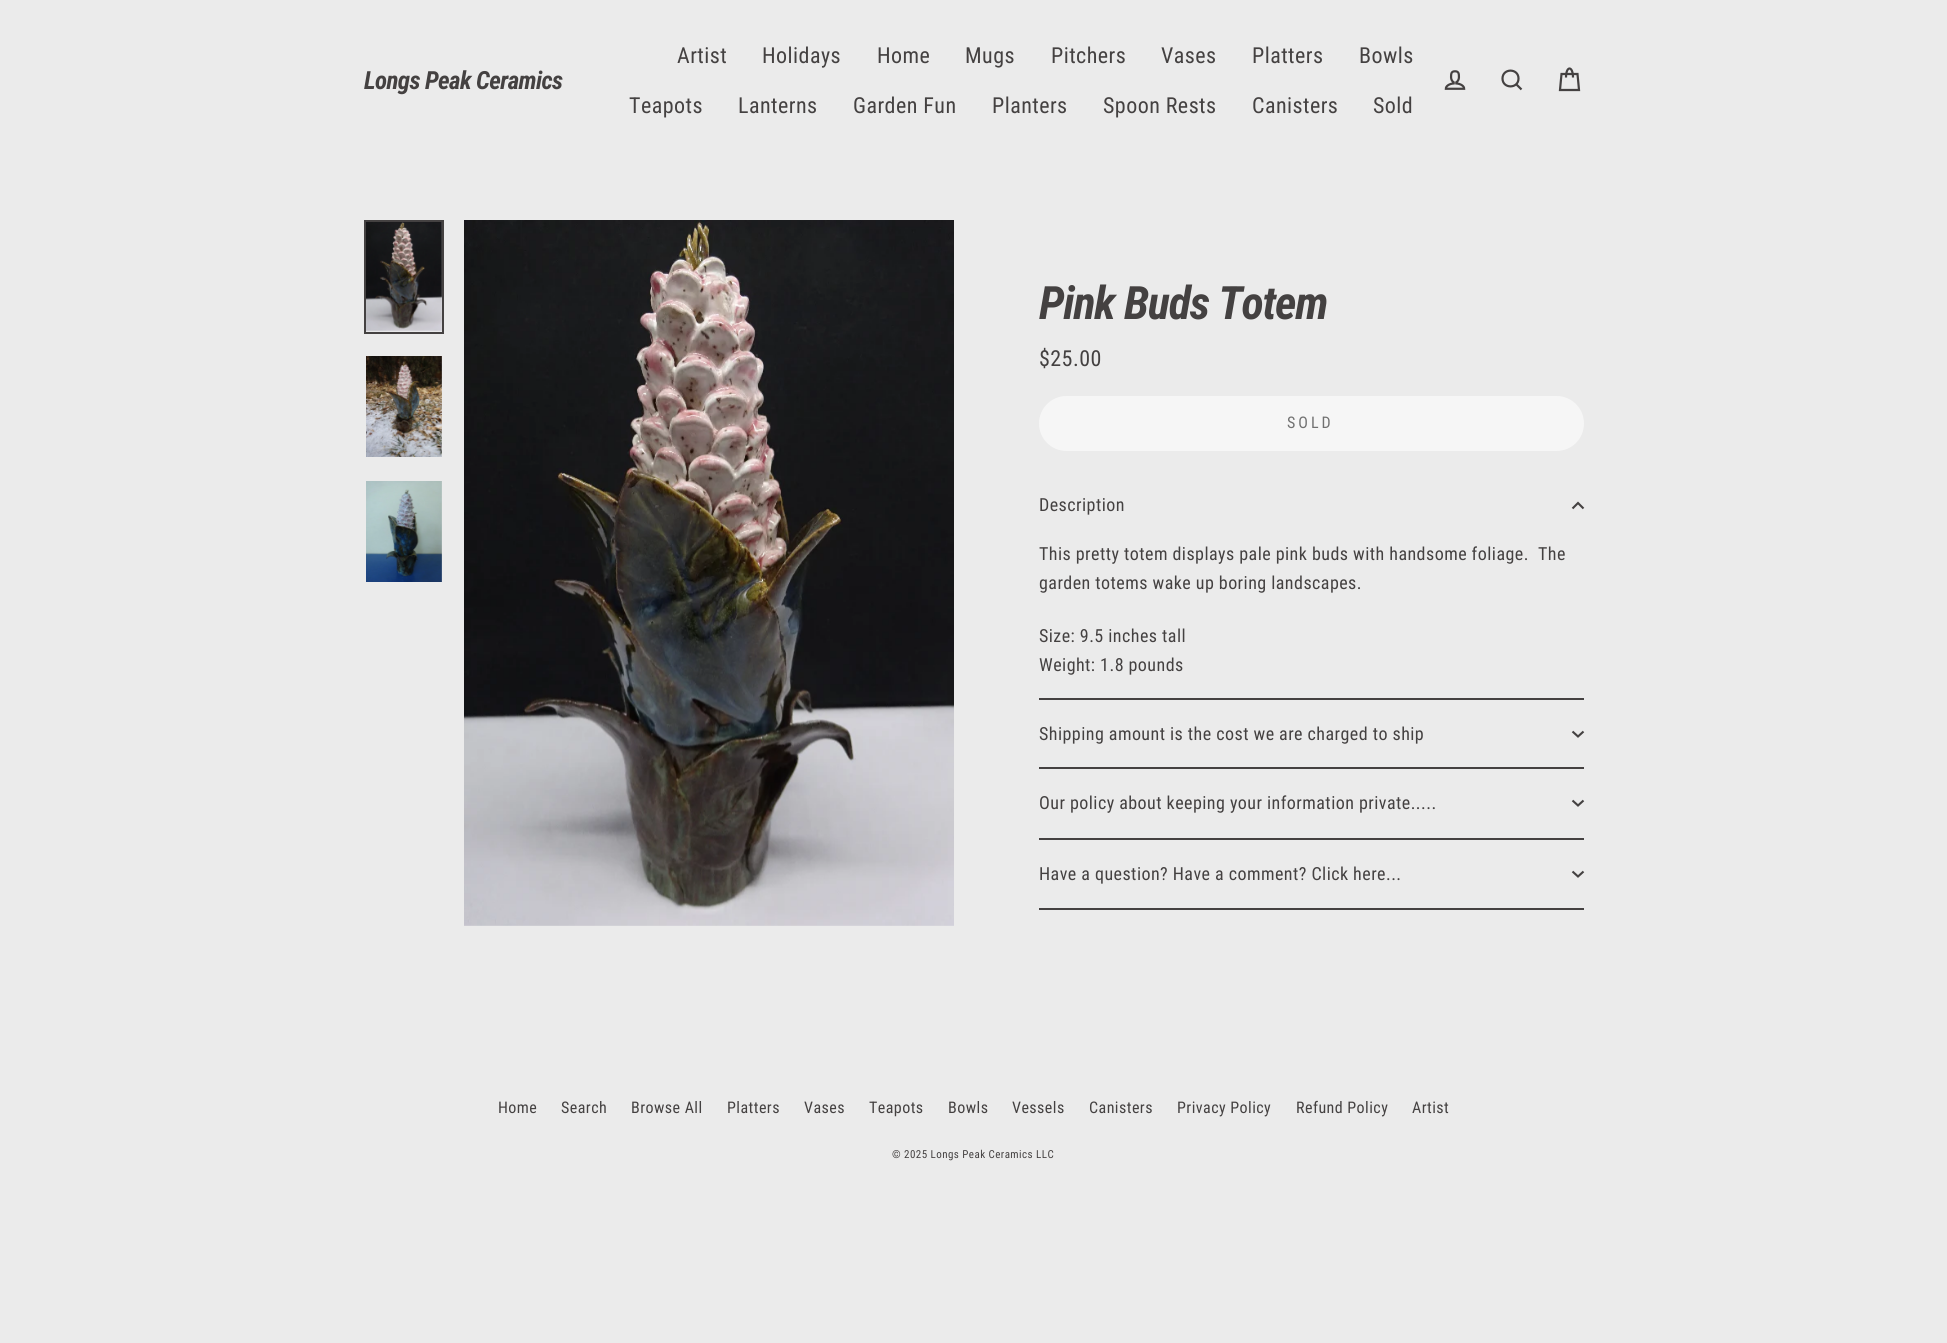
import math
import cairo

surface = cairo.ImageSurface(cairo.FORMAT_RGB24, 1947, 1343)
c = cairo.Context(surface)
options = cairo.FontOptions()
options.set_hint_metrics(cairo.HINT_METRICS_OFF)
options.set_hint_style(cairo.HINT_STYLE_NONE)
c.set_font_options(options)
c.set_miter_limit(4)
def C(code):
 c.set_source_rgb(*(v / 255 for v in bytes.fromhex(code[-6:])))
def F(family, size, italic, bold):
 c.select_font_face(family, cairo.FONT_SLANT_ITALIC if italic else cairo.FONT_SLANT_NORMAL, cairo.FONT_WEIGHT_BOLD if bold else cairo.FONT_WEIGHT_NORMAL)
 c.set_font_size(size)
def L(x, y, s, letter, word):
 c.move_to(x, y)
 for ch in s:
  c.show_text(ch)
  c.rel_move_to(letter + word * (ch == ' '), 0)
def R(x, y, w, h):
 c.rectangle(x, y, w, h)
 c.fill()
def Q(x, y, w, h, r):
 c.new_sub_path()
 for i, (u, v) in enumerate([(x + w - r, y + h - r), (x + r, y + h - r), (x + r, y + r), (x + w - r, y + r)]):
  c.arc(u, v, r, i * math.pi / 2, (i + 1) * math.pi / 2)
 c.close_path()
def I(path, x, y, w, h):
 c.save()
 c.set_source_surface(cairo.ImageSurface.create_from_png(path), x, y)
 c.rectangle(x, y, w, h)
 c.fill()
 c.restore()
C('ebebeb')
c.paint()
F('Roboto Condensed',25,1,1)
C('444141')
L(364,89,'Longs Peak Ceramics',-.6,0)
F('Roboto Condensed',22,0,0)
L(677,63,'Artist',.45,0)
L(762,63,'Holidays',.45,0)
L(877,63,'Home',.45,0)
L(965,63,'Mugs',.45,0)
L(1051,63,'Pitchers',.45,0)
L(1161,63,'Vases',.45,0)
L(1252,63,'Platters',.45,0)
L(1359,63,'Bowls',.45,0)
L(629,113,'Teapots',.45,0)
L(738,113,'Lanterns',.45,0)
L(853,113,'Garden Fun',.45,0)
L(992,113,'Planters',.45,0)
L(1103,113,'Spoon Rests',.45,0)
L(1252,113,'Canisters',.45,0)
L(1373,113,'Sold',.45,0)
I('1.png',1444,70,22,20)
c.new_path()
c.move_to(1518.5,78.5)
c.curve_to(1518.5,89,1502.5,89,1502.5,78.5)
c.curve_to(1502.5,68,1518.5,68,1518.5,78.5)
c.close_path()
c.move_to(1521.5,89.5)
c.line_to(1516.5,84.5)
c.set_line_width(2.2)
c.stroke()
c.new_path()
c.move_to(1566,77.5)
c.curve_to(1566,65.5,1573,65.5,1573,77.5)
c.move_to(1561.5,74)
c.line_to(1577.5,74)
c.line_to(1579,90)
c.line_to(1560,90)
c.close_path()
c.stroke()
c.rectangle(365,221,78,112)
c.set_line_width(2)
c.stroke()
gradient = cairo.LinearGradient(361,249,675,305)
gradient.add_color_stop_rgba(.4,0.941,0.941,0.941,1)
gradient.add_color_stop_rgba(.63,0.91,0.91,0.91,1)
gradient.add_color_stop_rgba(.79,0.941,0.941,0.941,1)
c.set_source(gradient)
R(366,222,76,110)
I('2.png',366,222,76,110)
I('3.png',366,356,76,101)
I('4.png',366,481,76,101)
I('5.png',464,220,490,706)
F('Roboto Condensed',46,1,1)
C('444141')
L(1039,319,'Pink Buds Totem',-1.1,0)
F('Roboto Condensed',22,0,0)
L(1039,366,'$25.00',.45,0)
C('f6f6f6')
Q(1039,396,545,55,27.5)
c.fill()
F('Roboto Condensed',16,0,0)
C('717171')
L(1287,428,'SOLD',3,0)
C('444141')
R(1039,908,545,2)
F('Roboto Condensed',18,0,0)
L(1039,511,'Description',.45,0)
c.new_path()
c.move_to(1572.5,508.5)
c.line_to(1578,503)
c.line_to(1583.5,508.5)
c.set_line_width(2.1)
c.stroke()
L(1039,560,'This pretty totem displays pale pink buds with handsome foliage.  The',.45,0)
L(1039,589,'garden totems wake up boring landscapes.',.45,0)
L(1039,642,'Size: 9.5 inches tall',.45,0)
L(1039,671,'Weight: 1.8 pounds',.45,0)
R(1039,698,545,2)
L(1039,740,'Shipping amount is the cost we are charged to ship',.45,0)
c.new_path()
c.move_to(1572.5,731.5)
c.line_to(1578,736.5)
c.line_to(1583.5,731.5)
c.stroke()
R(1039,767,545,2)
L(1039,809,'Our policy about keeping your information private.....',.45,0)
c.new_path()
c.move_to(1572.5,800.5)
c.line_to(1578,805.5)
c.line_to(1583.5,800.5)
c.stroke()
R(1039,838,545,2)
L(1039,880,'Have a question? Have a comment? Click here...',.45,0)
c.new_path()
c.move_to(1572.5,871.5)
c.line_to(1578,876.5)
c.line_to(1583.5,871.5)
c.stroke()
F('Roboto Condensed',16,0,0)
L(498,1113,'Home',.45,0)
L(561,1113,'Search',.45,0)
L(631,1113,'Browse All',.45,0)
L(727,1113,'Platters',.45,0)
L(804,1113,'Vases',.45,0)
L(869,1113,'Teapots',.45,0)
L(948,1113,'Bowls',.45,0)
L(1012,1113,'Vessels',.45,0)
L(1089,1113,'Canisters',.45,0)
L(1177,1113,'Privacy Policy',.45,0)
L(1296,1113,'Refund Policy',.45,0)
L(1412,1113,'Artist',.45,0)
F('Roboto Condensed',11,0,0)
L(892,1158,'© 2025 Longs Peak Ceramics LLC',.45,0)
surface.write_to_png('o.png')
